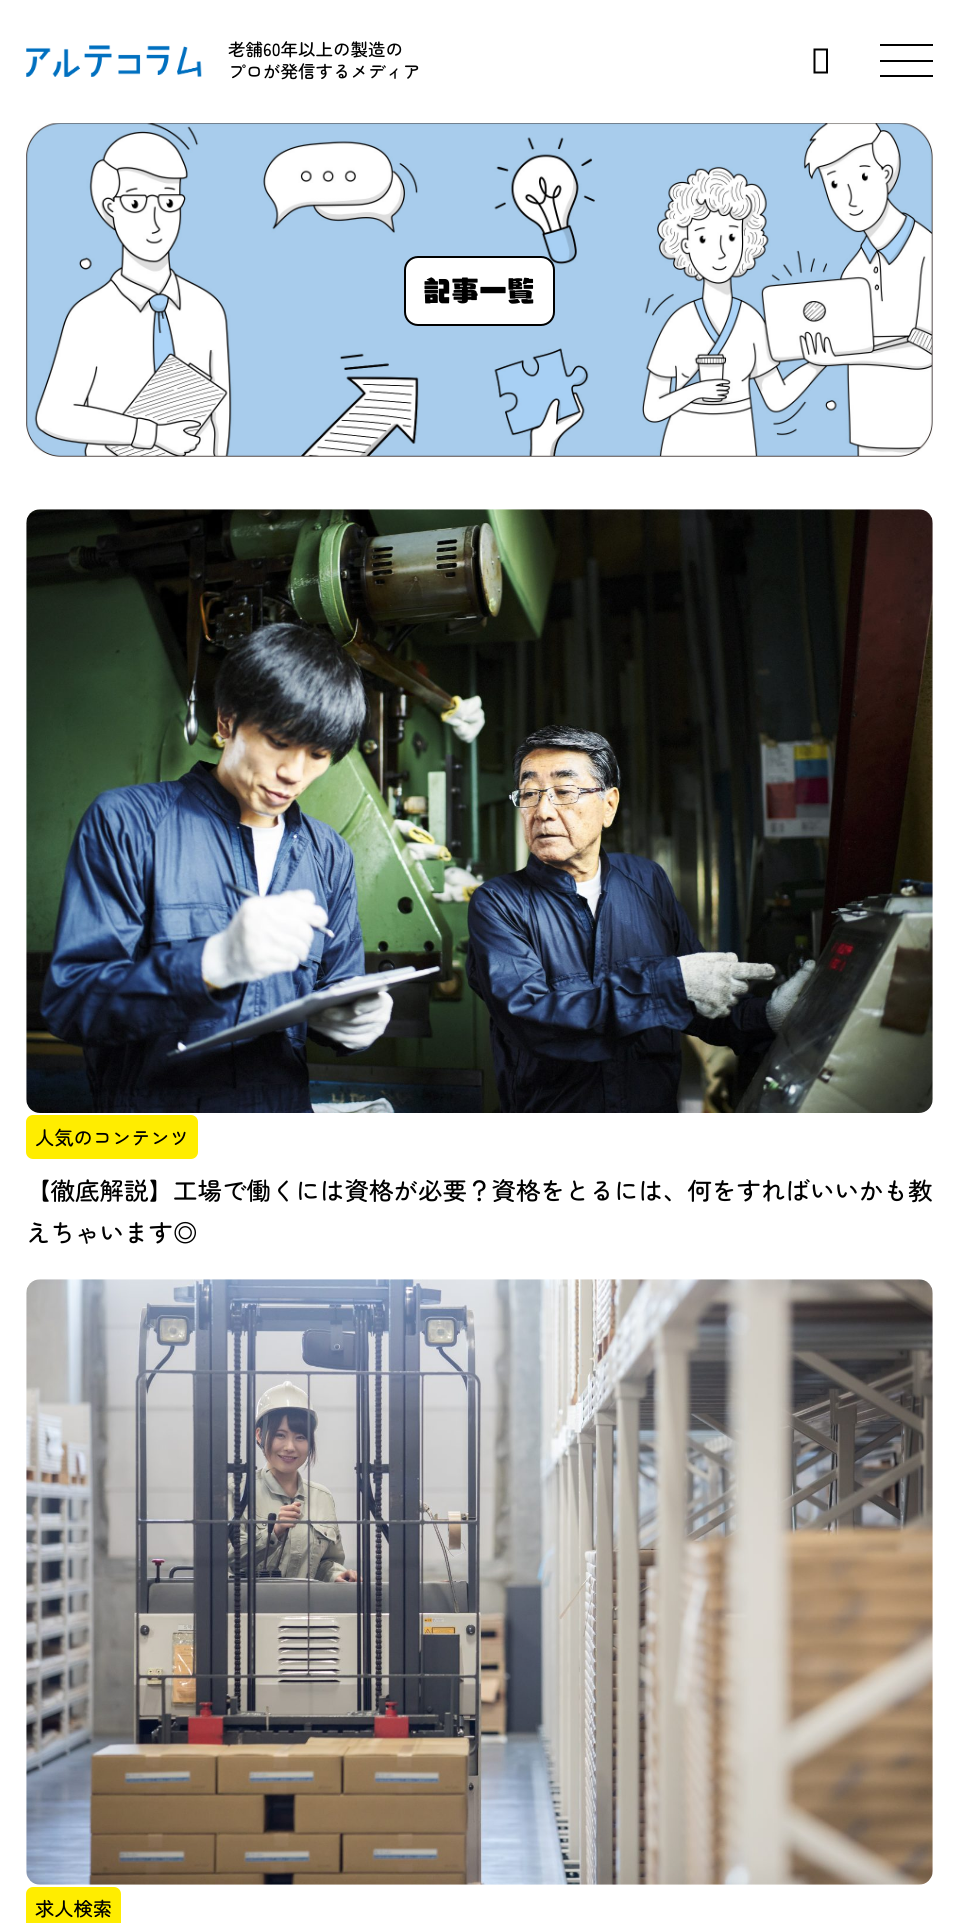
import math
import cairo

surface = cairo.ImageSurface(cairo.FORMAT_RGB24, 959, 1923)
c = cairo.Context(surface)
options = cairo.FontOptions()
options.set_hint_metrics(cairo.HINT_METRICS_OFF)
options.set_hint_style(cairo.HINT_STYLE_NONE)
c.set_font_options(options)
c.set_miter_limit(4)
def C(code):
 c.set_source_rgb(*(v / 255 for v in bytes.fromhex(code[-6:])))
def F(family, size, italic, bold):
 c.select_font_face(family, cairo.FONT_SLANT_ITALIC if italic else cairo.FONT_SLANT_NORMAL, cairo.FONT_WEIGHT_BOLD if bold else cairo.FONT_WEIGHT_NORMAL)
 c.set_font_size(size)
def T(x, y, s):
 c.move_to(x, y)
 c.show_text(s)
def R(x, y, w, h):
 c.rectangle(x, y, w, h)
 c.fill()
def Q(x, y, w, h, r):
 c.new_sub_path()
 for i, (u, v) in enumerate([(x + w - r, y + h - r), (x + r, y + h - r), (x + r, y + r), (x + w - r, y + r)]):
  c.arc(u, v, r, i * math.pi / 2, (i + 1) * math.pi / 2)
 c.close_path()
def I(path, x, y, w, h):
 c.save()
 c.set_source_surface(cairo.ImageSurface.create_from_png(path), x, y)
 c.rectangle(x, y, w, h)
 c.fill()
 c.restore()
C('ffffff')
c.paint()
I('1.png',26,45,176,32)
F('Zen Maru Gothic Medium',17.5,0,0)
C('000000')
T(228,56,'老舗60年以上の製造の')
T(228,78,'プロが発信するメディア')
c.new_path()
c.move_to(813.5,73.5)
c.line_to(813.5,48.5)
c.line_to(828,48.5)
c.line_to(828,73.5)
c.close_path()
c.move_to(815.5,71.5)
c.line_to(826,71.5)
c.line_to(826,50.5)
c.line_to(815.5,50.5)
c.close_path()
c.fill()
R(880,44,53,2)
R(880,60,53,2)
R(880,75,53,2)
I('2.png',26,123,907,334)
C('ffffff')
Q(405,257,149,68,13)
c.fill_preserve()
C('000000')
c.stroke()
F('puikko',28,0,0)
T(423,302,'記事一覧')
I('3.png',26,509,907,604)
C('ffed00')
Q(26,1115,172,44,7)
c.fill()
F('Zen Maru Gothic Medium',19.25,0,0)
C('000000')
T(35,1145,'人気のコンテンツ')
F('Zen Maru Gothic Medium',24.5,0,0)
T(26,1200,'【徹底解説】工場で働くには資格が必要？資格をとるには、何をすればいいかも教')
T(26,1242,'えちゃいます◎')
I('4.png',26,1279,907,606)
C('ffed00')
Q(26,1887,95,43,7)
c.fill()
F('Zen Maru Gothic Medium',19.25,0,0)
C('000000')
T(35,1916,'求人検索')
surface.write_to_png('o.png')
